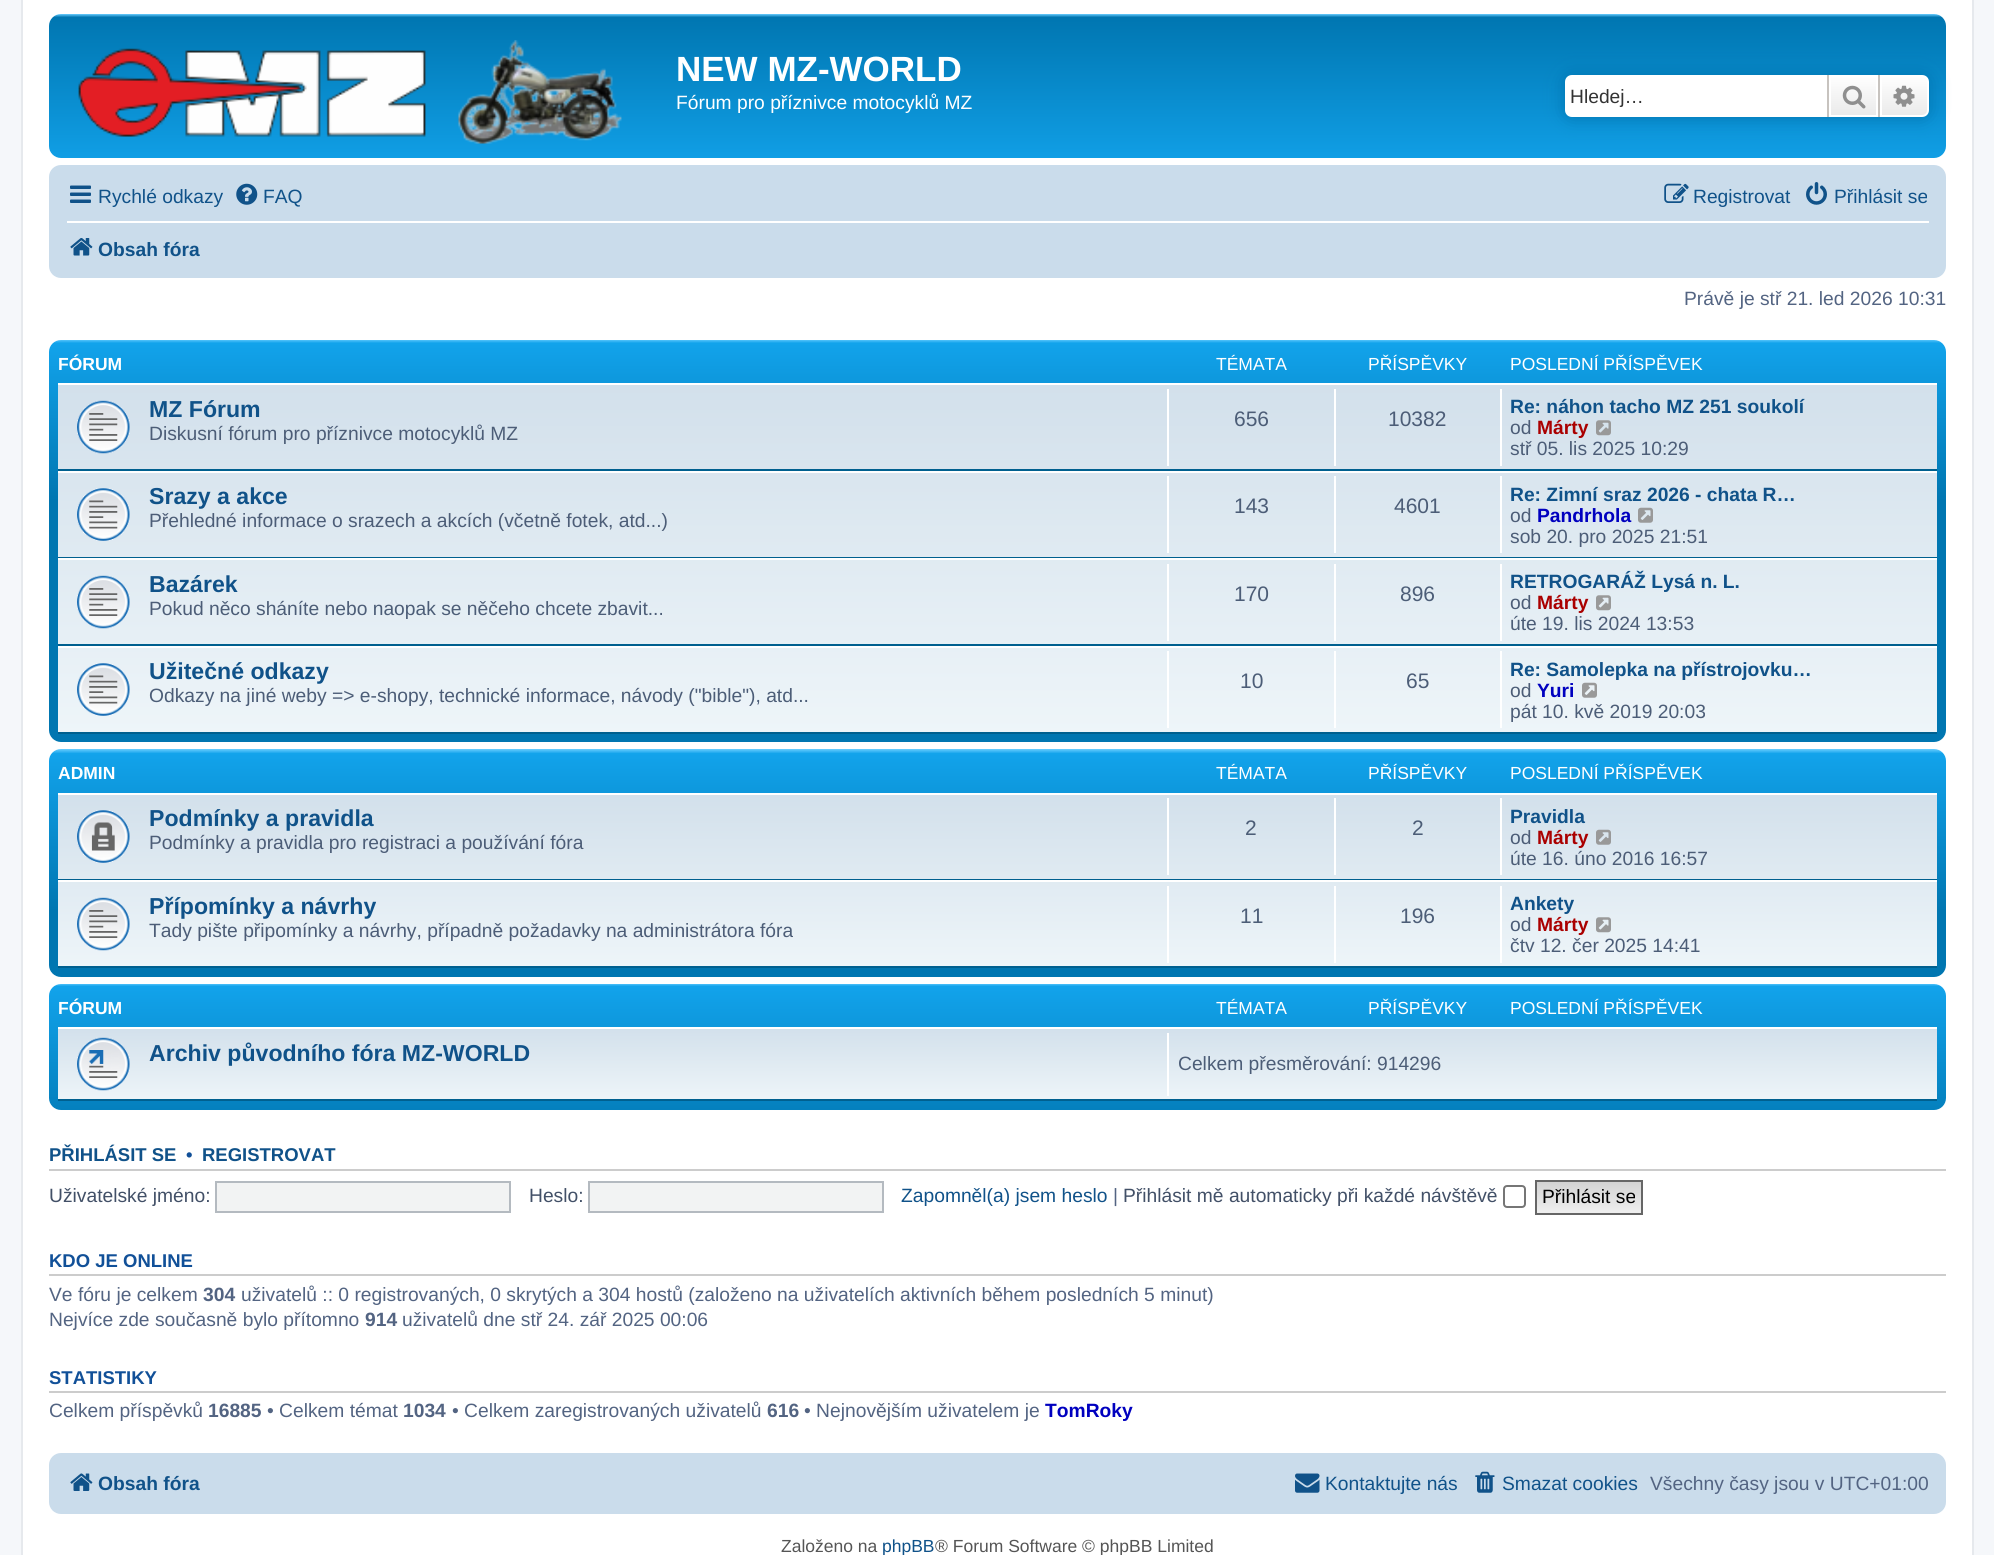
import math
import cairo

surface = cairo.ImageSurface(cairo.FORMAT_RGB24, 1994, 1555)
c = cairo.Context(surface)
options = cairo.FontOptions()
options.set_hint_metrics(cairo.HINT_METRICS_OFF)
options.set_hint_style(cairo.HINT_STYLE_NONE)
c.set_font_options(options)
c.set_miter_limit(4)
def C(code):
 c.set_source_rgb(*(v / 255 for v in bytes.fromhex(code[-6:])))
def F(family, size, italic, bold):
 c.select_font_face(family, cairo.FONT_SLANT_ITALIC if italic else cairo.FONT_SLANT_NORMAL, cairo.FONT_WEIGHT_BOLD if bold else cairo.FONT_WEIGHT_NORMAL)
 c.set_font_size(size)
def T(x, y, s):
 c.move_to(x, y)
 c.show_text(s)
def R(x, y, w, h):
 c.rectangle(x, y, w, h)
 c.fill()
def Q(x, y, w, h, r):
 c.new_sub_path()
 for i, (u, v) in enumerate([(x + w - r, y + h - r), (x + r, y + h - r), (x + r, y + r), (x + w - r, y + r)]):
  c.arc(u, v, r, i * math.pi / 2, (i + 1) * math.pi / 2)
 c.close_path()
def S(x, y, w, h, r, blur, alpha):
 c.push_group_with_content(cairo.CONTENT_ALPHA)
 c.set_operator(cairo.OPERATOR_SOURCE)
 for i in range(15, -16, -2):
  e = blur * i / 6
  if min(w, h) + 2 * e > 0:
   c.set_source_rgba(0, 0, 0, alpha * math.erfc((i - 1) / 8.5) / 2)
   Q(x - e, y - e, w + 2 * e, h + 2 * e, max(0, min(r + e + blur * .6, min(w, h) / 2 + e)))
   c.fill()
 c.mask(c.pop_group())
def I(path, x, y, w, h):
 c.save()
 c.set_source_surface(cairo.ImageSurface.create_from_png(path), x, y)
 c.rectangle(x, y, w, h)
 c.fill()
 c.restore()
C('f5f7fa')
c.paint()
C('ffffff')
c.rectangle(22,-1,1951,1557)
c.fill_preserve()
C('e6e9ed')
c.stroke()
gradient = cairo.LinearGradient(998,14,998,175)
gradient.add_color_stop_rgba(0,0.416,0.808,1,1)
gradient.add_color_stop_rgba(.02,0,0.463,0.694,1)
gradient.add_color_stop_rgba(1,0.071,0.639,0.922,1)
c.set_source(gradient)
Q(49,14,1897,144,12)
c.fill()
I('1.png',78,40,544,104)
F('Liberation Sans',35,0,1)
C('ffffff')
T(676,81,'NEW MZ-WORLD')
F('Liberation Sans',19.25,0,0)
T(676,109,'Fórum pro příznivce motocyklů MZ')
C('0075b0')
S(1565,75,364,42,7,9,1)
C('ffffff')
c.new_path()
c.move_to(1572,75)
c.line_to(1827,75)
c.line_to(1827,117)
c.line_to(1572,117)
c.curve_to(1568,117,1565,114,1565,110)
c.line_to(1565,82)
c.curve_to(1565,78,1568,75,1572,75)
c.close_path()
c.fill()
C('333333')
T(1570,103,'Hledej…')
gradient = cairo.LinearGradient(1853,75,1853,117)
gradient.add_color_stop_rgba(0,1,1,1,1)
gradient.add_color_stop_rgba(1,0.914,0.914,0.914,1)
c.set_source(gradient)
R(1831,77,45,38)
c.rectangle(1830,76,47,40)
C('ffffff')
c.stroke()
C('c7c3bf')
R(1878,75,2,42)
R(1827,75,2,42)
I('2.png',1842,85,24,24)
gradient = cairo.LinearGradient(1904,75,1904,117)
gradient.add_color_stop_rgba(0,1,1,1,1)
gradient.add_color_stop_rgba(1,0.914,0.914,0.914,1)
c.set_source(gradient)
c.new_path()
c.move_to(1881,76)
c.line_to(1922,76)
c.curve_to(1925.5,76,1928,78.5,1928,82)
c.line_to(1928,110)
c.curve_to(1928,113.5,1925.5,116,1922,116)
c.line_to(1881,116)
c.close_path()
c.fill_preserve()
C('ffffff')
c.stroke()
I('3.png',1893,85,22,22)
C('cadceb')
Q(49,165,1897,113,12)
c.fill()
I('4.png',70,185,21,18)
C('105289')
T(98,203,'Rychlé odkazy')
I('5.png',236,183,22,22)
T(263,203,'FAQ')
I('6.png',1664,183,25,20)
T(1693,203,'Registrovat')
I('7.png',1806,182,21,23)
T(1834,203,'Přihlásit se')
C('ffffff')
R(67,221,1862,2)
I('8.png',70,238,23,18)
F('Liberation Sans',19.25,0,1)
C('105289')
T(98,256,'Obsah fóra')
F('Liberation Sans',19.25,0,0)
C('536482')
T(1684,305,'Právě je stř 21. led 2026 10:31')
gradient = cairo.LinearGradient(998,339,998,742)
gradient.add_color_stop_rgba(0,0.416,0.808,1,1)
gradient.add_color_stop_rgba(.01,0.071,0.639,0.922,1)
gradient.add_color_stop_rgba(.4,0,0.463,0.694,1)
gradient.add_color_stop_rgba(1,0,0.463,0.694,1)
c.set_source(gradient)
Q(49,340,1897,402,12)
c.fill()
F('Liberation Sans',17.5,0,1)
C('ffffff')
T(58,370,'FÓRUM')
F('Liberation Sans',17.5,0,0)
T(1216,370,'TÉMATA')
T(1368,370,'PŘÍSPĚVKY')
T(1510,370,'POSLEDNÍ PŘÍSPĚVEK')
gradient = cairo.LinearGradient(998,383,998,733)
gradient.add_color_stop_rgba(0,0.824,0.878,0.922,1)
gradient.add_color_stop_rgba(1,0.933,0.961,0.976,1)
c.set_source(gradient)
R(58,385,1879,347)
C('ffffff')
R(58,383,1879,2)
C('00608f')
R(58,469,1879,2)
I('9.png',77,400,53,54)
F('Liberation Sans',23.1,0,1)
C('105289')
T(149,417,'MZ Fórum')
F('Liberation Sans',19.25,0,0)
C('4c5d77')
T(149,440,'Diskusní fórum pro příznivce motocyklů MZ')
C('ffffff')
R(1167,389,2,77)
F('Liberation Sans',21,0,0)
C('4c5d77')
T(1234,426,'656')
C('ffffff')
R(1334,389,2,77)
C('4c5d77')
T(1388,426,'10382')
C('ffffff')
R(1500,389,2,77)
F('Liberation Sans',19.25,0,1)
C('105289')
T(1510,413,'Re: náhon tacho MZ 251 soukolí')
F('Liberation Sans',19.25,0,0)
C('4c5d77')
T(1510,434,'od')
F('Liberation Sans',19.25,0,1)
C('aa0000')
T(1537,434,'Márty')
I('10.png',1596,420,15,16)
F('Liberation Sans',19.25,0,0)
C('4c5d77')
T(1510,455,'stř 05. lis 2025 10:29')
C('ffffff')
R(58,471,1879,2)
C('00608f')
R(58,557,1879,1)
I('11.png',77,488,53,53)
F('Liberation Sans',23.1,0,1)
C('105289')
T(149,504,'Srazy a akce')
F('Liberation Sans',19.25,0,0)
C('4c5d77')
T(149,527,'Přehledné informace o srazech a akcích (včetně fotek, atd...)')
C('ffffff')
R(1167,476,2,77)
F('Liberation Sans',21,0,0)
C('4c5d77')
T(1234,513,'143')
C('ffffff')
R(1334,476,2,77)
C('4c5d77')
T(1394,513,'4601')
C('ffffff')
R(1500,476,2,77)
F('Liberation Sans',19.25,0,1)
C('105289')
T(1510,501,'Re: Zimní sraz 2026 - chata R…')
F('Liberation Sans',19.25,0,0)
C('4c5d77')
T(1510,522,'od')
F('Liberation Sans',19.25,0,1)
C('0000bf')
T(1537,522,'Pandrhola')
I('12.png',1638,507,15,16)
F('Liberation Sans',19.25,0,0)
C('4c5d77')
T(1510,543,'sob 20. pro 2025 21:51')
C('ffffff')
R(58,558,1879,2)
C('00608f')
R(58,644,1879,2)
I('13.png',77,575,53,54)
F('Liberation Sans',23.1,0,1)
C('105289')
T(149,592,'Bazárek')
F('Liberation Sans',19.25,0,0)
C('4c5d77')
T(149,615,'Pokud něco sháníte nebo naopak se něčeho chcete zbavit...')
C('ffffff')
R(1167,564,2,77)
F('Liberation Sans',21,0,0)
C('4c5d77')
T(1234,601,'170')
C('ffffff')
R(1334,564,2,77)
C('4c5d77')
T(1400,601,'896')
C('ffffff')
R(1500,564,2,77)
F('Liberation Sans',19.25,0,1)
C('105289')
T(1510,588,'RETROGARÁŽ Lysá n. L.')
F('Liberation Sans',19.25,0,0)
C('4c5d77')
T(1510,609,'od')
F('Liberation Sans',19.25,0,1)
C('aa0000')
T(1537,609,'Márty')
I('14.png',1596,595,15,16)
F('Liberation Sans',19.25,0,0)
C('4c5d77')
T(1510,630,'úte 19. lis 2024 13:53')
C('ffffff')
R(58,646,1879,2)
C('00608f')
R(58,732,1879,2)
I('15.png',77,663,53,53)
F('Liberation Sans',23.1,0,1)
C('105289')
T(149,679,'Užitečné odkazy')
F('Liberation Sans',19.25,0,0)
C('4c5d77')
T(149,702,'Odkazy na jiné weby => e-shopy, technické informace, návody ("bible"), atd...')
C('ffffff')
R(1167,651,2,77)
F('Liberation Sans',21,0,0)
C('4c5d77')
T(1240,688,'10')
C('ffffff')
R(1334,651,2,77)
C('4c5d77')
T(1406,688,'65')
C('ffffff')
R(1500,651,2,77)
F('Liberation Sans',19.25,0,1)
C('105289')
T(1510,676,'Re: Samolepka na přístrojovku…')
F('Liberation Sans',19.25,0,0)
C('4c5d77')
T(1510,697,'od')
F('Liberation Sans',19.25,0,1)
C('0000bf')
T(1537,697,'Yuri')
I('16.png',1582,682,15,16)
F('Liberation Sans',19.25,0,0)
C('4c5d77')
T(1510,718,'pát 10. kvě 2019 20:03')
gradient = cairo.LinearGradient(998,749,998,977)
gradient.add_color_stop_rgba(0,0.416,0.808,1,1)
gradient.add_color_stop_rgba(.02,0.071,0.639,0.922,1)
gradient.add_color_stop_rgba(.71,0,0.463,0.694,1)
gradient.add_color_stop_rgba(1,0,0.463,0.694,1)
c.set_source(gradient)
Q(49,749,1897,228,12)
c.fill()
F('Liberation Sans',17.5,0,1)
C('ffffff')
T(58,779,'ADMIN')
F('Liberation Sans',17.5,0,0)
T(1216,779,'TÉMATA')
T(1368,779,'PŘÍSPĚVKY')
T(1510,779,'POSLEDNÍ PŘÍSPĚVEK')
gradient = cairo.LinearGradient(998,793,998,968)
gradient.add_color_stop_rgba(0,0.824,0.878,0.922,1)
gradient.add_color_stop_rgba(1,0.933,0.961,0.976,1)
c.set_source(gradient)
R(58,795,1879,171)
C('ffffff')
R(58,793,1879,2)
C('00608f')
R(58,879,1879,1)
I('17.png',77,810,53,53)
F('Liberation Sans',23.1,0,1)
C('105289')
T(149,826,'Podmínky a pravidla')
F('Liberation Sans',19.25,0,0)
C('4c5d77')
T(149,849,'Podmínky a pravidla pro registraci a používání fóra')
C('ffffff')
R(1167,798,2,77)
F('Liberation Sans',21,0,0)
C('4c5d77')
T(1245,835,'2')
C('ffffff')
R(1334,798,2,77)
C('4c5d77')
T(1412,835,'2')
C('ffffff')
R(1500,798,2,77)
F('Liberation Sans',19.25,0,1)
C('105289')
T(1510,823,'Pravidla')
F('Liberation Sans',19.25,0,0)
C('4c5d77')
T(1510,844,'od')
F('Liberation Sans',19.25,0,1)
C('aa0000')
T(1537,844,'Márty')
I('18.png',1596,829,15,16)
F('Liberation Sans',19.25,0,0)
C('4c5d77')
T(1510,865,'úte 16. úno 2016 16:57')
C('ffffff')
R(58,880,1879,2)
C('00608f')
R(58,966,1879,2)
I('19.png',77,897,53,54)
F('Liberation Sans',23.1,0,1)
C('105289')
T(149,914,'Přípomínky a návrhy')
F('Liberation Sans',19.25,0,0)
C('4c5d77')
T(149,937,'Tady pište připomínky a návrhy, případně požadavky na administrátora fóra')
C('ffffff')
R(1167,886,2,77)
F('Liberation Sans',21,0,0)
C('4c5d77')
T(1240,923,'11')
C('ffffff')
R(1334,886,2,77)
C('4c5d77')
T(1400,923,'196')
C('ffffff')
R(1500,886,2,77)
F('Liberation Sans',19.25,0,1)
C('105289')
T(1510,910,'Ankety')
F('Liberation Sans',19.25,0,0)
C('4c5d77')
T(1510,931,'od')
F('Liberation Sans',19.25,0,1)
C('aa0000')
T(1537,931,'Márty')
I('20.png',1596,917,15,16)
F('Liberation Sans',19.25,0,0)
C('4c5d77')
T(1510,952,'čtv 12. čer 2025 14:41')
gradient = cairo.LinearGradient(998,983,998,1145)
gradient.add_color_stop_rgba(0,0.416,0.808,1,1)
gradient.add_color_stop_rgba(.02,0.071,0.639,0.922,1)
gradient.add_color_stop_rgba(1,0,0.463,0.694,1)
c.set_source(gradient)
Q(49,984,1897,126,12)
c.fill()
F('Liberation Sans',17.5,0,1)
C('ffffff')
T(58,1014,'FÓRUM')
F('Liberation Sans',17.5,0,0)
T(1216,1014,'TÉMATA')
T(1368,1014,'PŘÍSPĚVKY')
T(1510,1014,'POSLEDNÍ PŘÍSPĚVEK')
gradient = cairo.LinearGradient(998,1027,998,1101)
gradient.add_color_stop_rgba(0,0.824,0.878,0.922,1)
gradient.add_color_stop_rgba(1,0.933,0.961,0.976,1)
c.set_source(gradient)
R(58,1029,1879,70)
C('ffffff')
R(58,1027,1879,2)
C('00608f')
R(58,1099,1879,2)
I('21.png',77,1037,53,54)
F('Liberation Sans',23.1,0,1)
C('105289')
T(149,1061,'Archiv původního fóra MZ-WORLD')
C('ffffff')
R(1167,1033,2,63)
F('Liberation Sans',19.25,0,0)
C('4c5d77')
T(1178,1070,'Celkem přesměrování: 914296')
C('cccccc')
R(49,1169,1897,2)
F('Liberation Sans',18.5,0,1)
C('105289')
T(49,1161,'PŘIHLÁSIT SE')
C('115098')
T(186,1161,'•')
C('105289')
T(202,1161,'REGISTROVAT')
F('Liberation Sans',19.25,0,0)
C('425067')
T(49,1202,'Uživatelské jméno:')
C('f2f3f3')
c.rectangle(216,1182,294,30)
c.fill_preserve()
C('b4bac0')
c.stroke()
C('425067')
T(529,1202,'Heslo:')
C('f2f3f3')
c.rectangle(589,1182,294,30)
c.fill_preserve()
C('b4bac0')
c.stroke()
C('105289')
T(901,1202,'Zapomněl(a) jsem heslo')
C('536482')
T(1113,1202,'|')
C('425067')
T(1123,1202,'Přihlásit mě automaticky při každé návštěvě')
Q(1504,1186,21,21,3)
C('767676')
c.stroke()
gradient = cairo.LinearGradient(1589,1181,1589,1213)
gradient.add_color_stop_rgba(0,0.824,0.824,0.824,1)
gradient.add_color_stop_rgba(1,0.937,0.937,0.937,1)
c.set_source(gradient)
R(1537,1182,104,31)
c.rectangle(1536,1181,106,33)
C('666666')
c.stroke()
C('000000')
T(1542,1203,'Přihlásit se')
C('cccccc')
R(49,1274,1897,2)
F('Liberation Sans',18.5,0,1)
C('115098')
T(49,1267,'KDO JE ONLINE')
F('Liberation Sans',19.25,0,0)
C('536482')
T(49,1301,'Ve fóru je celkem')
F('Liberation Sans',19.25,0,1)
T(203,1301,'304')
F('Liberation Sans',19.25,0,0)
T(241,1301,'uživatelů :: 0 registrovaných, 0 skrytých a 304 hostů (založeno na uživatelích aktivních během posledních 5 minut)')
T(49,1326,'Nejvíce zde současně bylo přítomno')
F('Liberation Sans',19.25,0,1)
T(365,1326,'914')
F('Liberation Sans',19.25,0,0)
T(402,1326,'uživatelů dne stř 24. zář 2025 00:06')
C('cccccc')
R(49,1391,1897,2)
F('Liberation Sans',18.5,0,1)
C('115098')
T(49,1384,'STATISTIKY')
F('Liberation Sans',19.25,0,0)
C('536482')
T(49,1417,'Celkem příspěvků')
F('Liberation Sans',19.25,0,1)
T(208,1417,'16885')
F('Liberation Sans',19.25,0,0)
T(267,1417,'• Celkem témat')
F('Liberation Sans',19.25,0,1)
T(403,1417,'1034')
F('Liberation Sans',19.25,0,0)
T(452,1417,'• Celkem zaregistrovaných uživatelů')
F('Liberation Sans',19.25,0,1)
T(767,1417,'616')
F('Liberation Sans',19.25,0,0)
T(804,1417,'• Nejnovějším uživatelem je')
F('Liberation Sans',19.25,0,1)
C('0000bf')
T(1045,1417,'TomRoky')
C('cadceb')
Q(49,1453,1897,61,12)
c.fill()
I('22.png',70,1473,23,18)
C('105289')
T(98,1490,'Obsah fóra')
I('23.png',1295,1473,25,20)
F('Liberation Sans',19.25,0,0)
T(1325,1490,'Kontaktujte nás')
I('24.png',1475,1471,20,22)
T(1502,1490,'Smazat cookies')
C('536482')
T(1650,1490,'Všechny časy jsou v UTC+01:00')
F('Liberation Sans',17.5,0,0)
C('555555')
T(781,1552,'Založeno na')
C('105289')
T(882,1552,'phpBB')
C('555555')
T(935,1552,'® Forum Software © phpBB Limited')
surface.write_to_png('o.png')
